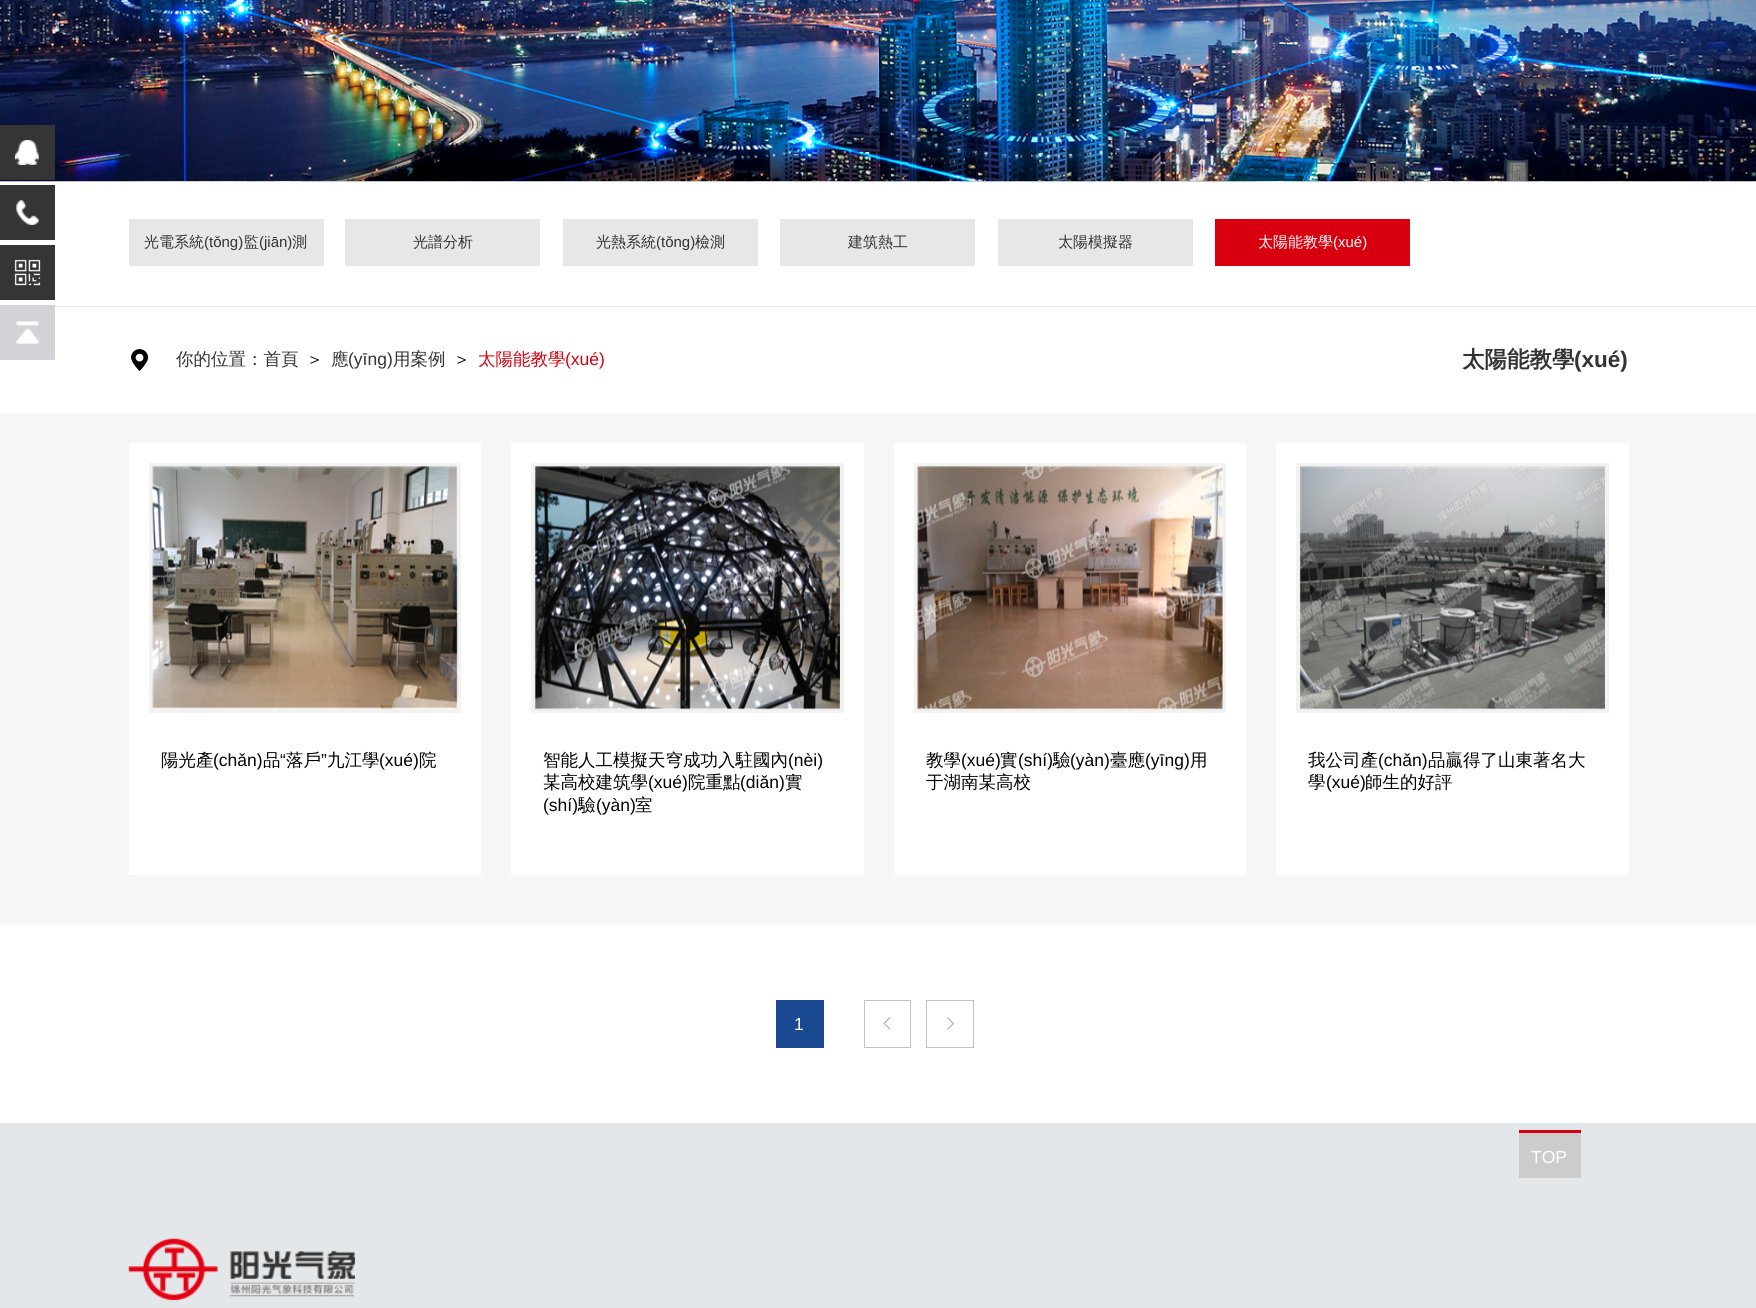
import math
import cairo

surface = cairo.ImageSurface(cairo.FORMAT_RGB24, 1756, 1308)
c = cairo.Context(surface)
options = cairo.FontOptions()
options.set_hint_metrics(cairo.HINT_METRICS_OFF)
options.set_hint_style(cairo.HINT_STYLE_NONE)
c.set_font_options(options)
c.set_miter_limit(4)
def C(code):
 c.set_source_rgb(*(v / 255 for v in bytes.fromhex(code[-6:])))
def F(family, size, italic, bold):
 c.select_font_face(family, cairo.FONT_SLANT_ITALIC if italic else cairo.FONT_SLANT_NORMAL, cairo.FONT_WEIGHT_BOLD if bold else cairo.FONT_WEIGHT_NORMAL)
 c.set_font_size(size)
def T(x, y, s):
 c.move_to(x, y)
 c.show_text(s)
def R(x, y, w, h):
 c.rectangle(x, y, w, h)
 c.fill()
def I(path, x, y, w, h):
 c.save()
 c.set_source_surface(cairo.ImageSurface.create_from_png(path), x, y)
 c.rectangle(x, y, w, h)
 c.fill()
 c.restore()
C('ffffff')
c.paint()
I('1.png',0,181,1756,1)
I('2.png',0,0,1756,182)
C('353535')
R(0,125,55,55)
I('3.png',15,140,24,25)
R(0,185,55,55)
I('4.png',16,200,23,25)
R(0,245,55,55)
I('5.png',14,259,27,27)
C('d2d3d6')
R(0,305,55,55)
I('6.png',16,321,23,23)
C('e8e8e8')
R(55,306,1701,1)
C('e7e7e7')
R(129,219,195,47)
F('WenQuanYi Zen Hei Medium',15,0,0)
C('333333')
T(144,247,'光電系統')
F('Liberation Sans',15,0,0)
T(204,247,'(tǒng)')
F('WenQuanYi Zen Hei Medium',15,0,0)
T(244,247,'監')
F('Liberation Sans',15,0,0)
T(259,247,'(jiān)')
F('WenQuanYi Zen Hei Medium',15,0,0)
T(292,247,'測')
C('e7e7e7')
R(345,219,195,47)
C('333333')
T(413,247,'光譜分析')
C('e7e7e7')
R(563,219,195,47)
C('333333')
T(596,247,'光熱系統')
F('Liberation Sans',15,0,0)
T(656,247,'(tǒng)')
F('WenQuanYi Zen Hei Medium',15,0,0)
T(695,247,'檢測')
C('e7e7e7')
R(780,219,195,47)
C('333333')
T(848,247,'建筑熱工')
C('e7e7e7')
R(998,219,195,47)
C('333333')
T(1058,247,'太陽模擬器')
C('d8000e')
R(1215,219,195,47)
C('ffffff')
T(1258,247,'太陽能教學')
F('Liberation Sans',15,0,0)
T(1333,247,'(xué)')
I('7.png',131,349,18,22)
F('WenQuanYi Zen Hei Medium',17.5,0,0)
C('333333')
T(176,365,'你的位置：首頁')
C('000000')
T(306,365,'＞')
C('333333')
T(331,365,'應')
F('Liberation Sans',17.5,0,0)
T(348,365,'(yīng)')
F('WenQuanYi Zen Hei Medium',17.5,0,0)
T(393,365,'用案例')
C('000000')
T(453,365,'＞')
C('d8000e')
T(478,365,'太陽能教學')
F('Liberation Sans',17.5,0,0)
T(565,365,'(xué)')
F('WenQuanYi Zen Hei',22.5,0,1)
C('333333')
T(1462,367,'太陽能教學')
F('Liberation Sans',22.5,0,1)
T(1574,367,'(xué)')
C('f6f6f6')
R(0,413,1756,512)
C('ffffff')
R(129,443,352,432)
c.rectangle(151,465,308,246)
C('f2f2f2')
c.set_line_width(4)
c.stroke()
I('8.png',152,466,306,243)
F('WenQuanYi Zen Hei Medium',17.5,0,0)
C('000000')
T(161,766,'陽光產')
F('Liberation Sans',17.5,0,0)
T(213,766,'(chǎn)')
F('WenQuanYi Zen Hei Medium',17.5,0,0)
T(263,766,'品')
F('Liberation Sans',17.5,0,0)
T(280,766,'“')
F('WenQuanYi Zen Hei Medium',17.5,0,0)
T(286,766,'落戶')
F('Liberation Sans',17.5,0,0)
T(321,766,'”')
F('WenQuanYi Zen Hei Medium',17.5,0,0)
T(327,766,'九江學')
F('Liberation Sans',17.5,0,0)
T(379,766,'(xué)')
F('WenQuanYi Zen Hei Medium',17.5,0,0)
T(419,766,'院')
C('ffffff')
R(511,443,353,432)
c.rectangle(533,465,309,246)
C('f2f2f2')
c.stroke()
I('9.png',534,466,306,244)
C('000000')
T(543,766,'智能人工模擬天穹成功入駐國內')
F('Liberation Sans',17.5,0,0)
T(788,766,'(nèi)')
F('WenQuanYi Zen Hei Medium',17.5,0,0)
T(543,788,'某高校建筑學')
F('Liberation Sans',17.5,0,0)
T(648,788,'(xué)')
F('WenQuanYi Zen Hei Medium',17.5,0,0)
T(688,788,'院重點')
F('Liberation Sans',17.5,0,0)
T(740,788,'(diǎn)')
F('WenQuanYi Zen Hei Medium',17.5,0,0)
T(785,788,'實')
F('Liberation Sans',17.5,0,0)
T(543,811,'(shí)')
F('WenQuanYi Zen Hei Medium',17.5,0,0)
T(578,811,'驗')
F('Liberation Sans',17.5,0,0)
T(596,811,'(yàn)')
F('WenQuanYi Zen Hei Medium',17.5,0,0)
T(635,811,'室')
C('ffffff')
R(894,443,352,432)
c.rectangle(916,465,308,246)
C('f2f2f2')
c.stroke()
I('10.png',917,466,306,244)
C('000000')
T(926,766,'教學')
F('Liberation Sans',17.5,0,0)
T(961,766,'(xué)')
F('WenQuanYi Zen Hei Medium',17.5,0,0)
T(1000,766,'實')
F('Liberation Sans',17.5,0,0)
T(1018,766,'(shí)')
F('WenQuanYi Zen Hei Medium',17.5,0,0)
T(1053,766,'驗')
F('Liberation Sans',17.5,0,0)
T(1070,766,'(yàn)')
F('WenQuanYi Zen Hei Medium',17.5,0,0)
T(1110,766,'臺應')
F('Liberation Sans',17.5,0,0)
T(1145,766,'(yīng)')
F('WenQuanYi Zen Hei Medium',17.5,0,0)
T(1190,766,'用')
T(926,788,'于湖南某高校')
C('ffffff')
R(1276,443,353,432)
c.rectangle(1298,465,309,246)
C('f2f2f2')
c.stroke()
I('11.png',1299,466,306,244)
C('000000')
T(1308,766,'我公司產')
F('Liberation Sans',17.5,0,0)
T(1378,766,'(chǎn)')
F('WenQuanYi Zen Hei Medium',17.5,0,0)
T(1428,766,'品贏得了山東著名大')
T(1308,788,'學')
F('Liberation Sans',17.5,0,0)
T(1326,788,'(xué)')
F('WenQuanYi Zen Hei Medium',17.5,0,0)
T(1365,788,'師生的好評')
C('194991')
R(776,1000,48,48)
F('Liberation Sans',17.5,0,0)
C('ffffff')
T(794,1030,'1')
c.rectangle(864.5,1000.5,46,47)
C('c2c2c2')
c.set_line_width(1)
c.stroke()
I('12.png',883,1017,8,13)
c.rectangle(926.5,1000.5,47,47)
c.stroke()
I('13.png',947,1017,7,13)
C('e4e7ea')
R(0,1123,1756,185)
C('cccccc')
R(1519,1133,62,45)
C('d8000e')
R(1519,1130,62,3)
C('ffffff')
T(1531,1163,'TOP')
I('14.png',128,1238,227,62)
surface.write_to_png('o.png')
